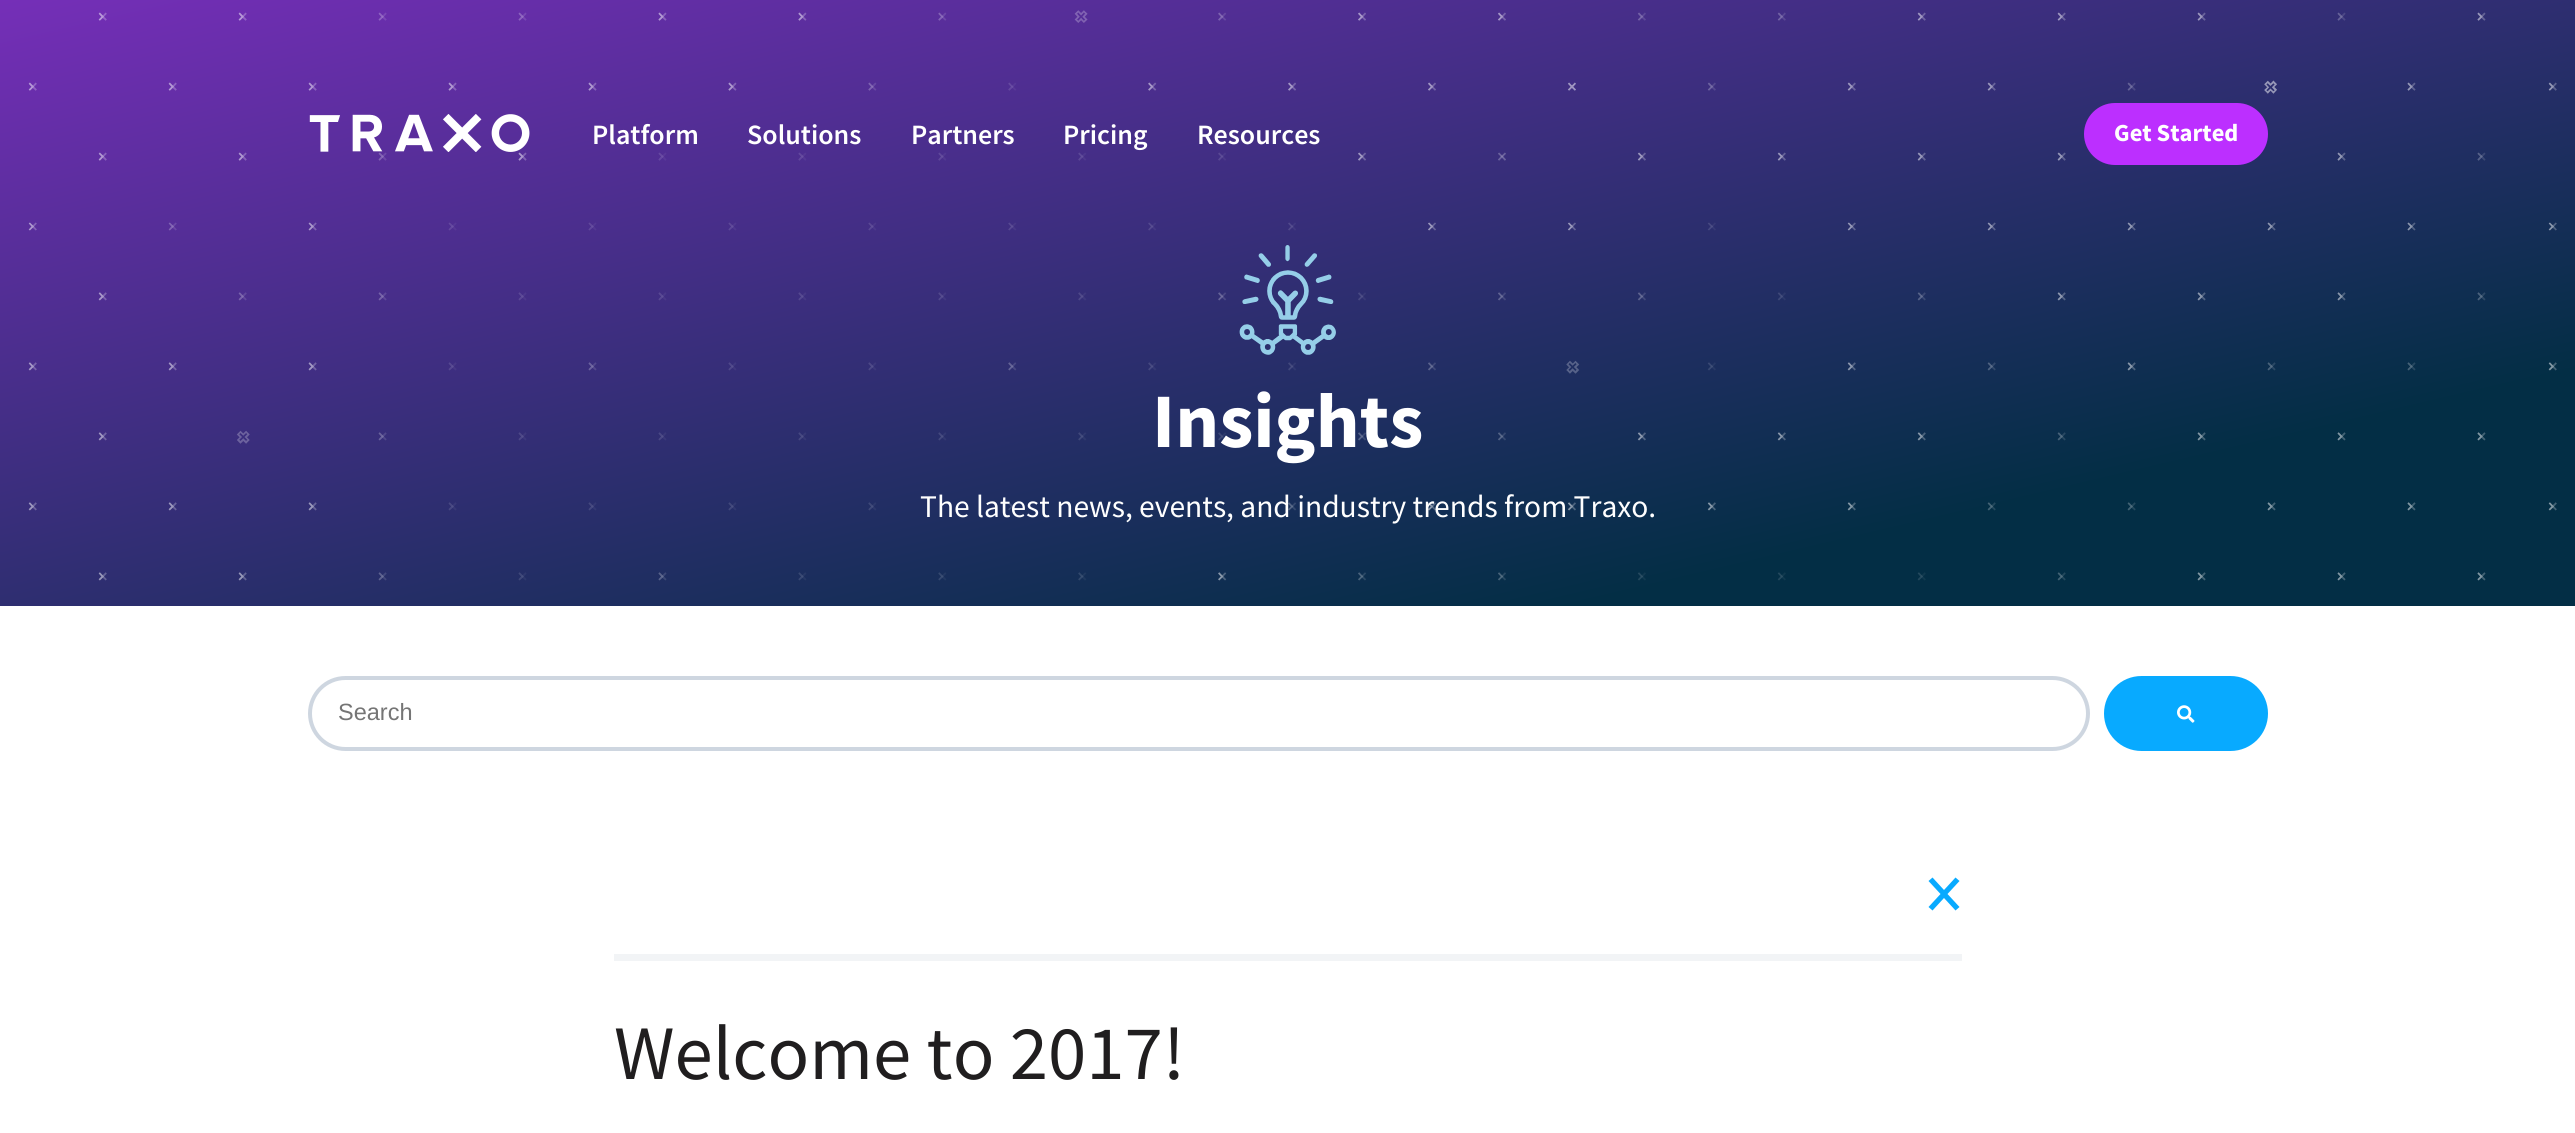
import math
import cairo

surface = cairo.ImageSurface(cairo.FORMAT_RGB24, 2575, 1133)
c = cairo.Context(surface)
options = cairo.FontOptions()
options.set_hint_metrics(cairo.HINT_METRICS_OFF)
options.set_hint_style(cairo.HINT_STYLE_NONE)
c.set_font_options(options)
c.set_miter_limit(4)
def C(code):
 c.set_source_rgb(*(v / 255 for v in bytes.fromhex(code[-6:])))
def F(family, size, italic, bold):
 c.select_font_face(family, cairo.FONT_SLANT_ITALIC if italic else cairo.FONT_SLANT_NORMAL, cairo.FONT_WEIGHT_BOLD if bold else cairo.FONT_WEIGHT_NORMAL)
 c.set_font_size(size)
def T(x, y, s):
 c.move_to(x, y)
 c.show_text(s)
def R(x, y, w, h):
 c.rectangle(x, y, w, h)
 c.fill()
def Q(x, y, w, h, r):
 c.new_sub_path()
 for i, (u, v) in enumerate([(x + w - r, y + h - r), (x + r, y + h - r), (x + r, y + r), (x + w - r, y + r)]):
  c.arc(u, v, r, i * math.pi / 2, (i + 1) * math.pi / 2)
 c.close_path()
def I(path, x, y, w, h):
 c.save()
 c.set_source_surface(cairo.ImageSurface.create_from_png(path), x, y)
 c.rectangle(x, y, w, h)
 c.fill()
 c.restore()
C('ffffff')
c.paint()
gradient = cairo.LinearGradient(1423,877,1018,-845)
gradient.add_color_stop_rgba(.13,0.012,0.18,0.271,1)
gradient.add_color_stop_rgba(1,0.737,0.184,1,1)
c.set_source(gradient)
R(0,0,2575,606)
I('2.png',28,10,2529,571)
I('1.png',309,114,221,38)
F('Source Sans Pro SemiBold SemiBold',28,0,0)
C('ffffff')
T(592,144,'Platform')
T(747,144,'Solutions')
T(911,144,'Partners')
T(1063,144,'Pricing')
T(1197,144,'Resources')
C('bc2fff')
Q(2085,104,182,60,30)
c.fill_preserve()
c.stroke()
F('Source Sans Pro',24.5,0,1)
C('ffffff')
T(2114,141,'Get Started')
I('3.png',1239,245,97,110)
F('Source Sans Pro',77,0,1)
T(1152,447,'Insights')
F('Source Sans Pro',31.5,0,0)
T(920,517,'The latest news, events, and industry trends from Traxo.')
Q(310,678,1778,71,35.5)
C('ced6e0')
c.set_line_width(4)
c.stroke()
F('Liberation Sans',23.5,0,0)
C('757575')
T(338,720,'Search')
C('08aaff')
Q(2104,676,164,75,37.5)
c.fill()
I('4.png',2177,705,18,18)
C('f2f4f6')
R(614,954,1348,7)
C('08aaff')
c.new_path()
c.move_to(1955.5,877.5)
c.line_to(1959.5,881)
c.line_to(1947.5,894)
c.line_to(1959.5,907)
c.line_to(1955.5,910.5)
c.line_to(1944,898)
c.line_to(1932.5,910.5)
c.line_to(1928.5,907)
c.line_to(1940.5,894)
c.line_to(1928.5,881)
c.line_to(1932.5,877.5)
c.line_to(1944,890)
c.close_path()
c.fill()
F('Source Sans Pro',77,0,0)
C('201e1f')
T(614,1079,'Welcome to 2017!')
surface.write_to_png('o.png')
